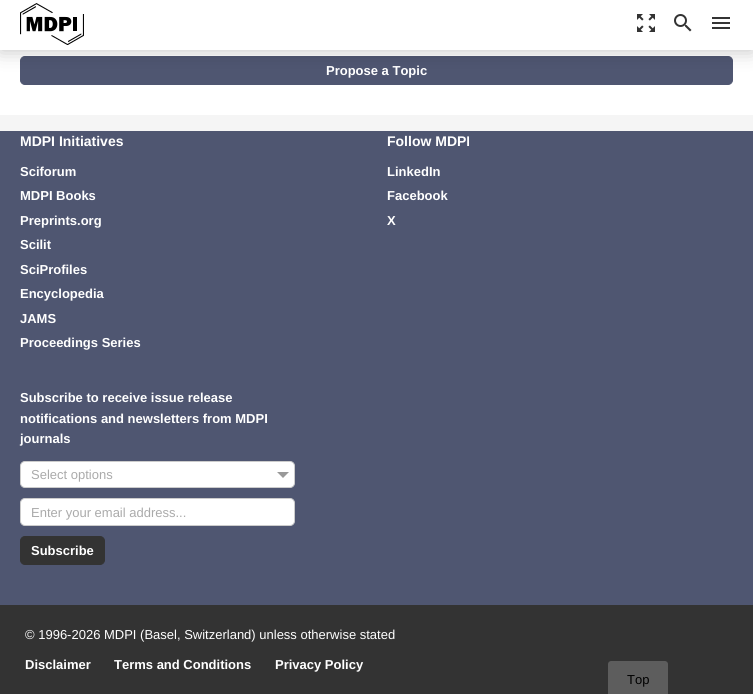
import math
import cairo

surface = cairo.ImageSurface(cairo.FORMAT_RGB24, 753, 694)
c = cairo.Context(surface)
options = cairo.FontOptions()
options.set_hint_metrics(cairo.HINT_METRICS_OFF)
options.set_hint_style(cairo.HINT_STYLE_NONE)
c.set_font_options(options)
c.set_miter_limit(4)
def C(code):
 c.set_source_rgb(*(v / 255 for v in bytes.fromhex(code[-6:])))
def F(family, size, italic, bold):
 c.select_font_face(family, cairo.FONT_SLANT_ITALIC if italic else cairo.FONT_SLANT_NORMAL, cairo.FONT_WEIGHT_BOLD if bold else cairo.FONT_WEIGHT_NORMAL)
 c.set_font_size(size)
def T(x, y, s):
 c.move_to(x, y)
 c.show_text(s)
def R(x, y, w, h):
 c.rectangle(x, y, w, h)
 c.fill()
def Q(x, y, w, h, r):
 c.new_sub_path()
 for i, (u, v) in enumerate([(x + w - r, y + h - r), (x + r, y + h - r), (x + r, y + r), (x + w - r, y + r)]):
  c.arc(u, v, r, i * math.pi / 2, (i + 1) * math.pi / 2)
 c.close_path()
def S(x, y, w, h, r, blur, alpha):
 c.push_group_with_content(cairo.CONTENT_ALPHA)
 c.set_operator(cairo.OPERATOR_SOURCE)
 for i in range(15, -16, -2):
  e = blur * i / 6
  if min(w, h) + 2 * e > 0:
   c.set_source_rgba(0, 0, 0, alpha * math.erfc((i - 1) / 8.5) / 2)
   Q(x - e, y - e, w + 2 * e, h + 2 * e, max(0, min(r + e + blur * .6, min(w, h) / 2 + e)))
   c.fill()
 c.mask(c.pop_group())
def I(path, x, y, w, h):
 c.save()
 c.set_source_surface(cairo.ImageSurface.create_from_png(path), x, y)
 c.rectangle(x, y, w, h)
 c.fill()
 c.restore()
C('4f5671')
c.paint()
C('ffffff')
R(0,50,753,65)
C('4f5671')
Q(20.5,56.5,712,28,4.5)
c.fill_preserve()
c.set_line_width(1)
c.stroke()
C('000000')
S(0,0,753,50,0,10,.25)
C('ffffff')
R(0,0,753,50)
I('1.png',20,3,64,42)
I('2.png',637,14,18,18)
I('3.png',674,14,18,18)
I('4.png',712,17,18,12)
C('f5f5f5')
R(0,115,753,16)
F('Liberation Sans',13,0,1)
C('ffffff')
T(326,75,'Propose a Topic')
F('Liberation Sans',14,0,1)
T(20,146,'MDPI Initiatives')
F('Liberation Sans',13,0,1)
T(20,176,'Sciforum')
T(20,200,'MDPI Books')
T(20,225,'Preprints.org')
T(20,249,'Scilit')
T(20,274,'SciProfiles')
T(20,298,'Encyclopedia')
T(20,323,'JAMS')
T(20,347,'Proceedings Series')
F('Liberation Sans',14,0,1)
T(387,146,'Follow MDPI')
F('Liberation Sans',13,0,1)
T(387,176,'LinkedIn')
T(387,200,'Facebook')
T(387,225,'X')
T(20,402,'Subscribe to receive issue release')
T(20,423,'notifications and newsletters from MDPI')
T(20,443,'journals')
Q(20.5,461.5,274,26,4.5)
c.fill_preserve()
C('cccccc')
c.stroke()
F('Liberation Sans',13,0,0)
C('aaaaaa')
T(31,479,'Select options')
C('999999')
c.new_path()
c.move_to(277,472)
c.line_to(289,472)
c.line_to(283,478)
c.close_path()
c.fill()
C('ffffff')
Q(20.5,498.5,274,27,4.5)
c.fill_preserve()
C('cccccc')
c.stroke()
C('aaaaaa')
T(31,517,'Enter your email address...')
C('333333')
Q(20.5,536.5,84,28,4.5)
c.fill_preserve()
c.stroke()
F('Liberation Sans',13,0,1)
C('ffffff')
T(31,555,'Subscribe')
C('333333')
R(0,605,753,89)
F('Liberation Sans',13,0,0)
C('ffffff')
T(25,639,'© 1996-2026 MDPI (Basel, Switzerland) unless otherwise stated')
F('Liberation Sans',13,0,1)
T(25,669,'Disclaimer')
T(114,669,'Terms and Conditions')
T(275,669,'Privacy Policy')
C('5d5d5d')
c.new_path()
c.move_to(611,661)
c.line_to(665,661)
c.curve_to(666.5,661,668,662.5,668,664)
c.line_to(668,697)
c.line_to(608,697)
c.line_to(608,664)
c.curve_to(608,662.5,609.5,661,611,661)
c.close_path()
c.fill()
F('Liberation Sans',13,0,0)
C('000000')
T(627,684,'Top')
surface.write_to_png('o.png')
